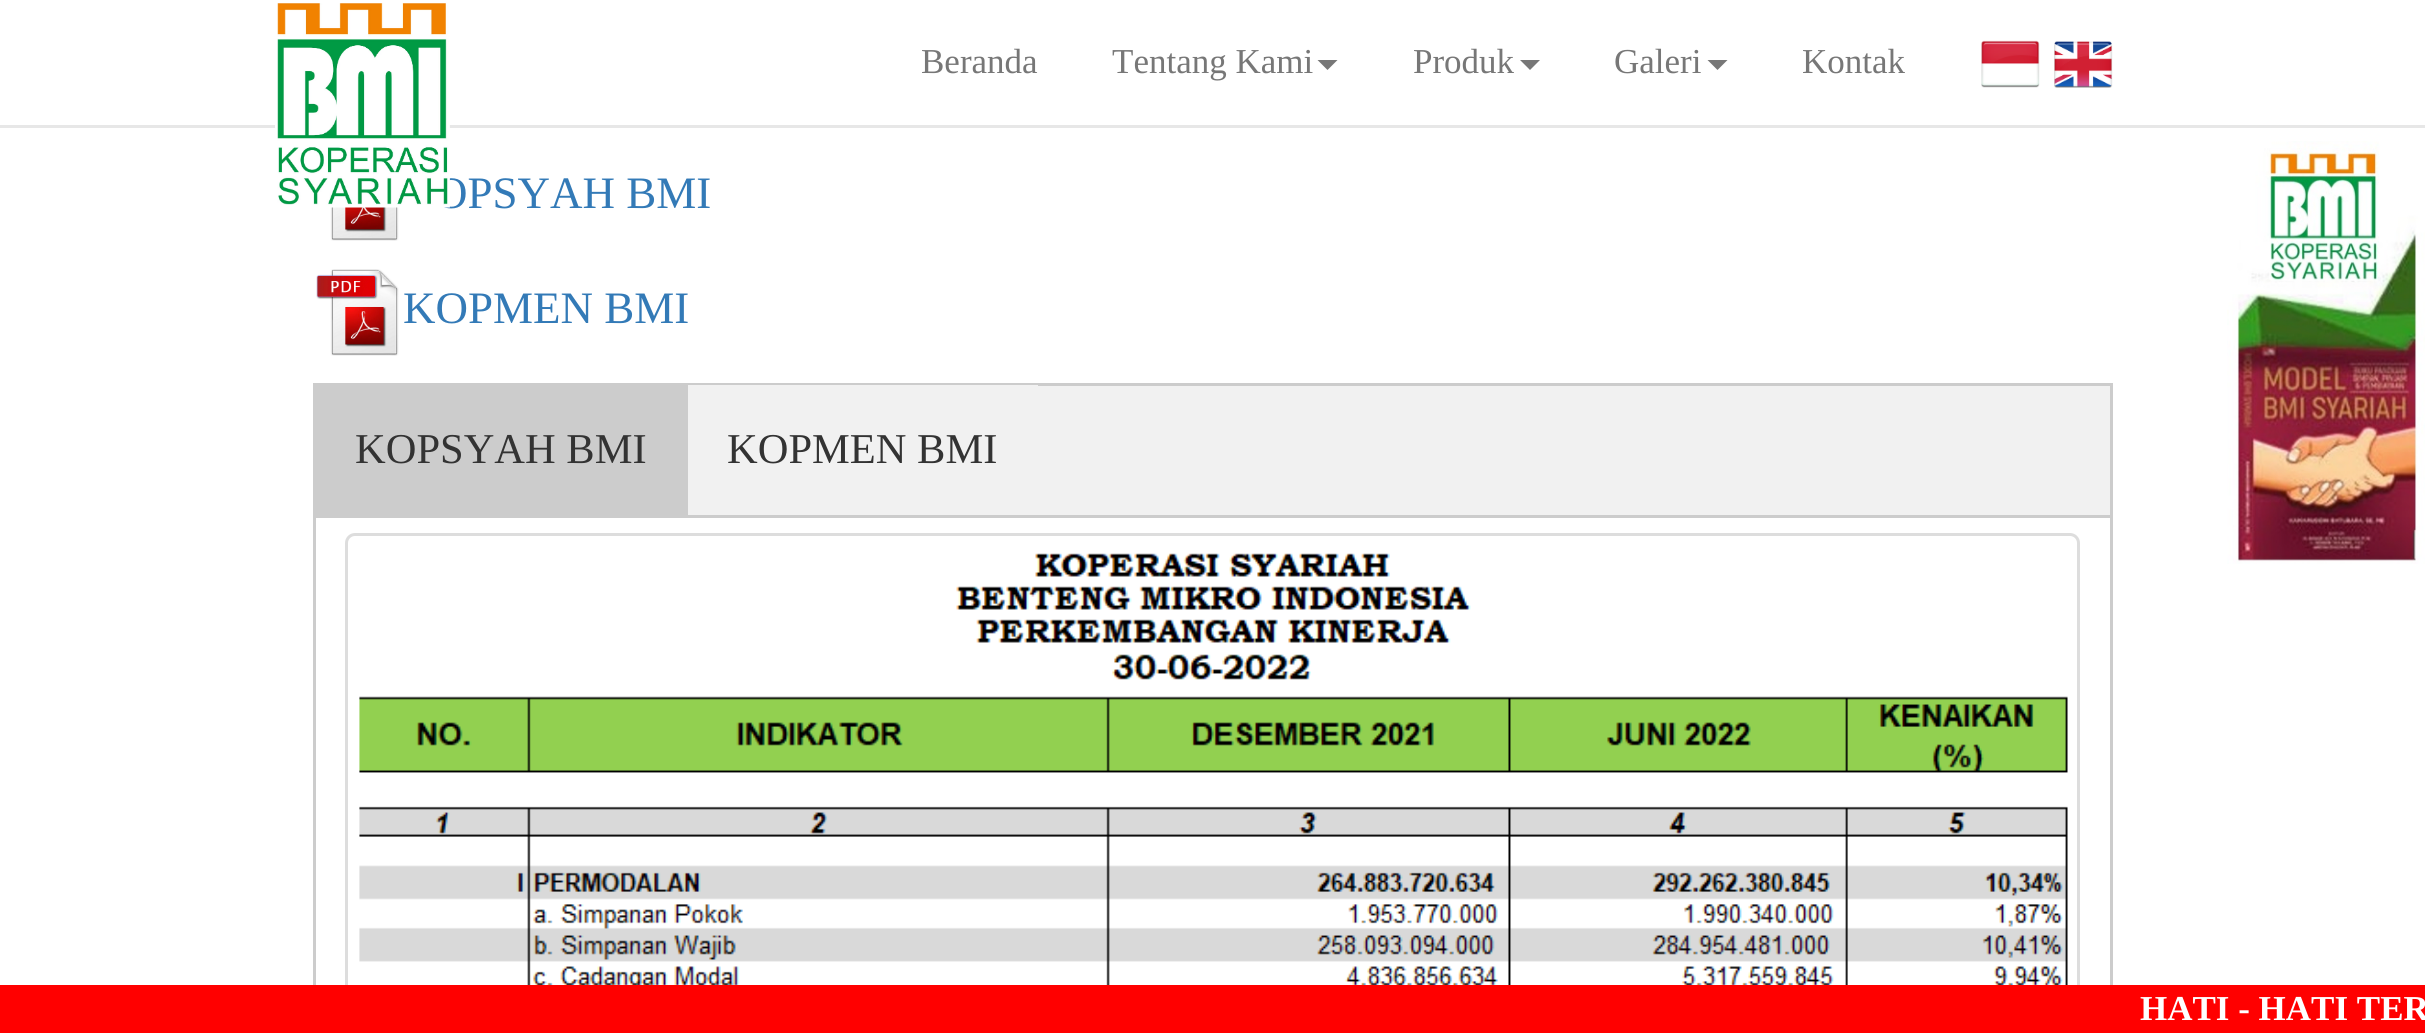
import math
import cairo

surface = cairo.ImageSurface(cairo.FORMAT_RGB24, 2425, 1033)
c = cairo.Context(surface)
options = cairo.FontOptions()
options.set_hint_metrics(cairo.HINT_METRICS_OFF)
options.set_hint_style(cairo.HINT_STYLE_NONE)
c.set_font_options(options)
c.set_miter_limit(4)
def C(code):
 c.set_source_rgb(*(v / 255 for v in bytes.fromhex(code[-6:])))
def F(family, size, italic, bold):
 c.select_font_face(family, cairo.FONT_SLANT_ITALIC if italic else cairo.FONT_SLANT_NORMAL, cairo.FONT_WEIGHT_BOLD if bold else cairo.FONT_WEIGHT_NORMAL)
 c.set_font_size(size)
def T(x, y, s):
 c.move_to(x, y)
 c.show_text(s)
def R(x, y, w, h):
 c.rectangle(x, y, w, h)
 c.fill()
def Q(x, y, w, h, r):
 c.new_sub_path()
 for i, (u, v) in enumerate([(x + w - r, y + h - r), (x + r, y + h - r), (x + r, y + r), (x + w - r, y + r)]):
  c.arc(u, v, r, i * math.pi / 2, (i + 1) * math.pi / 2)
 c.close_path()
def I(path, x, y, w, h):
 c.save()
 c.set_source_surface(cairo.ImageSurface.create_from_png(path), x, y)
 c.rectangle(x, y, w, h)
 c.fill()
 c.restore()
C('ffffff')
c.paint()
C('e7e7e7')
R(0,125,2425,3)
F('Liberation Serif',45,0,0)
C('337ab7')
T(435,208,'OPSYAH BMI')
I('4.png',330,207,69,34)
I('1.png',275,3,175,205)
F('Liberation Serif',35,0,0)
C('777777')
T(921,73,'Beranda')
T(1112,73,'Tentang Kami')
c.new_path()
c.move_to(1317.5,60)
c.line_to(1337.5,60)
c.line_to(1327.5,70)
c.close_path()
c.fill()
T(1413,73,'Produk')
c.new_path()
c.move_to(1520,60)
c.line_to(1540,60)
c.line_to(1530,70)
c.close_path()
c.fill()
T(1614,73,'Galeri')
c.new_path()
c.move_to(1707.5,60)
c.line_to(1727.5,60)
c.line_to(1717.5,70)
c.close_path()
c.fill()
T(1802,73,'Kontak')
I('2.png',1981,40,59,48)
I('3.png',2054,41,59,47)
I('5.png',316,269,83,87)
F('Liberation Serif',45,0,0)
C('337ab7')
T(403,323,'KOPMEN BMI')
C('f1f1f1')
R(1038,386,1072,129)
c.rectangle(314.5,384.5,1797,132)
C('cccccc')
c.set_line_width(3)
c.stroke()
R(316,386,372,129)
F('Liberation Serif',42.5,0,0)
C('333333')
T(355,463,'KOPSYAH BMI')
C('f1f1f1')
R(688,385,350,130)
C('333333')
T(727,463,'KOPMEN BMI')
C('cccccc')
R(2110,518,3,467)
R(313,518,3,467)
Q(346.5,534.5,1732,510,8.5)
C('dddddd')
c.stroke()
I('6.png',359,553,1709,432)
I('7.png',2227,141,198,423)
C('ff0000')
R(0,985,2425,48)
F('Liberation Serif',35,0,1)
C('ffffff')
T(2140,1020,'HATI - HATI TER')
surface.write_to_png('o.png')
